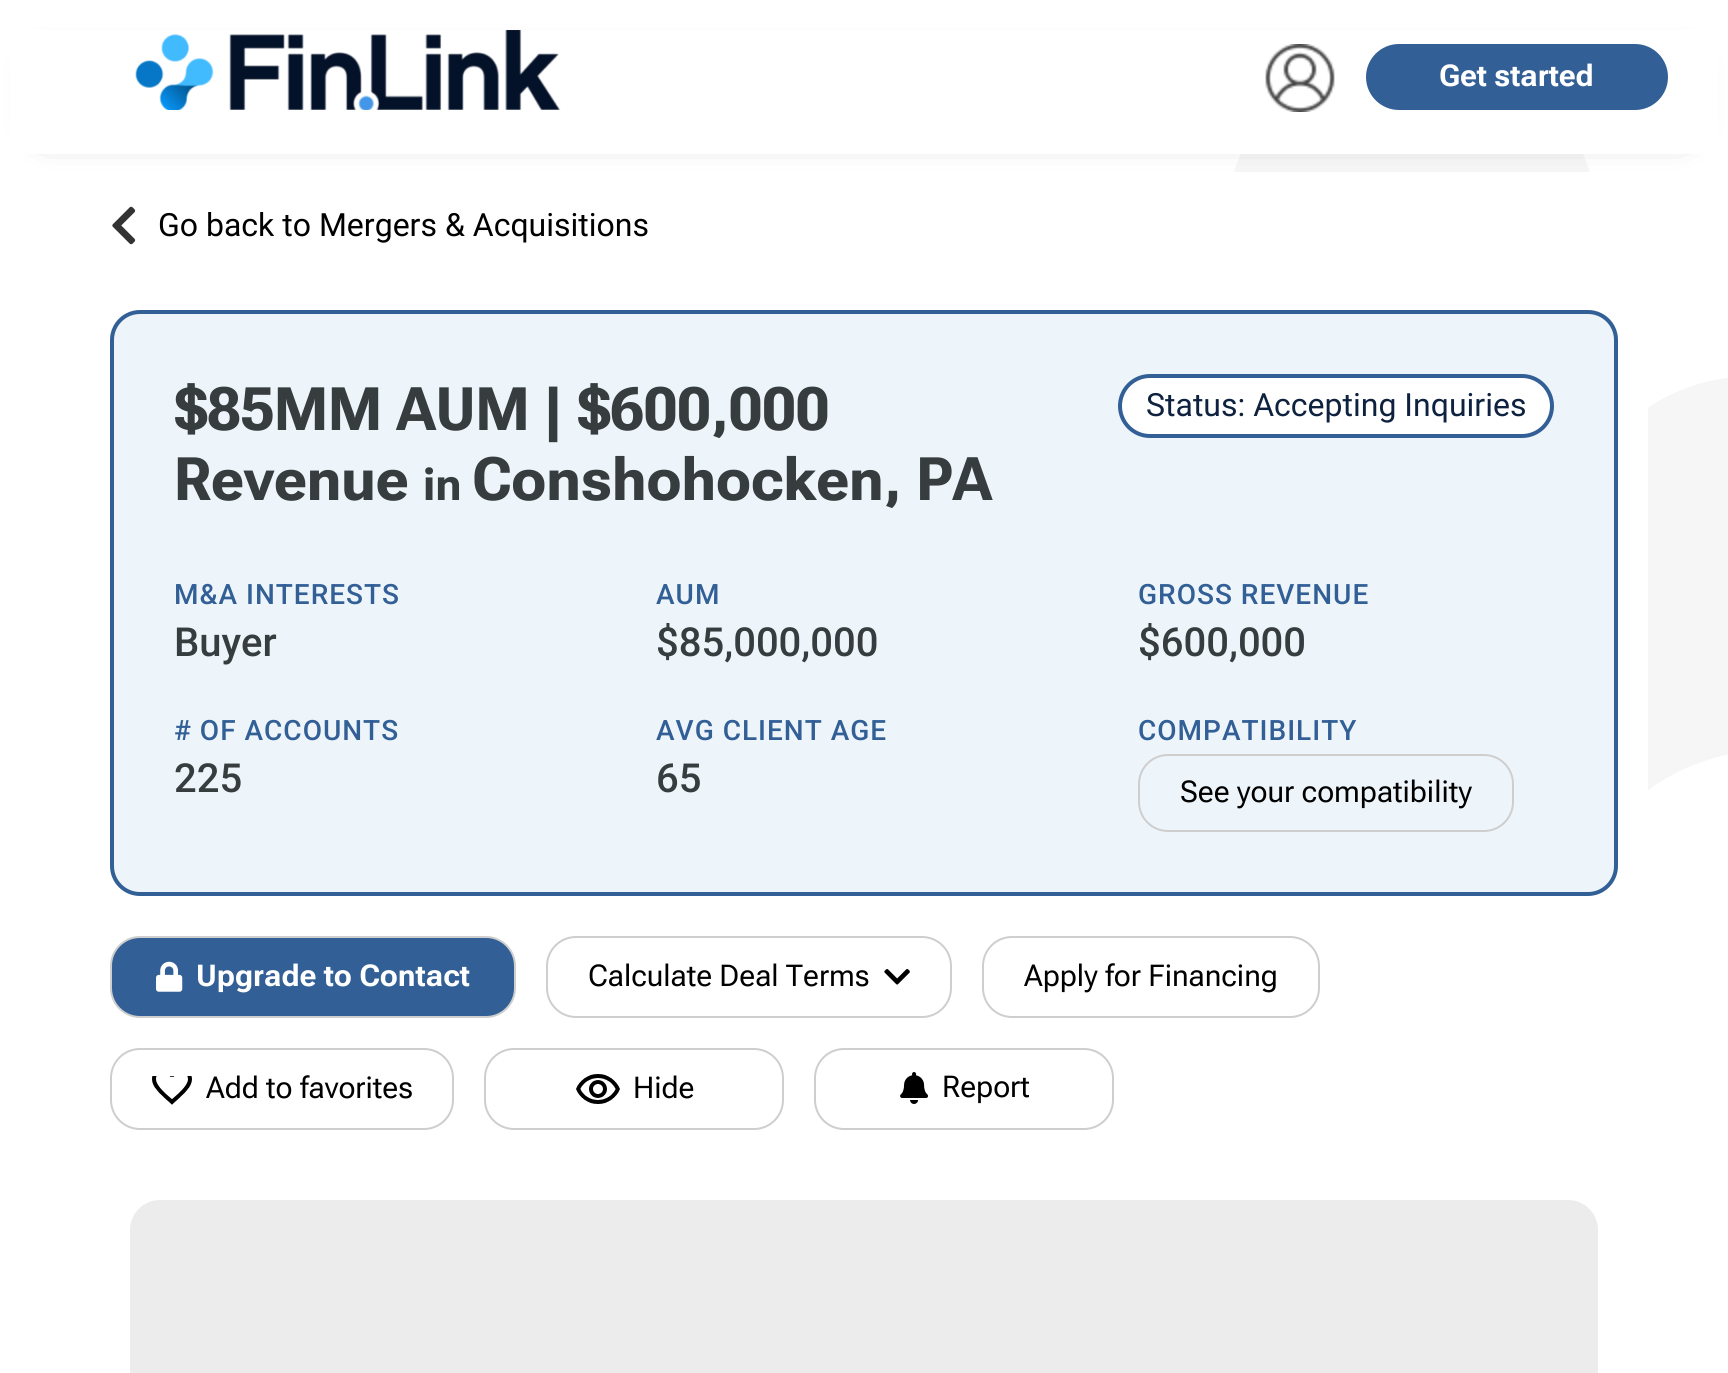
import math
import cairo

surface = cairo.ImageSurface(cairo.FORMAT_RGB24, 1728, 1373)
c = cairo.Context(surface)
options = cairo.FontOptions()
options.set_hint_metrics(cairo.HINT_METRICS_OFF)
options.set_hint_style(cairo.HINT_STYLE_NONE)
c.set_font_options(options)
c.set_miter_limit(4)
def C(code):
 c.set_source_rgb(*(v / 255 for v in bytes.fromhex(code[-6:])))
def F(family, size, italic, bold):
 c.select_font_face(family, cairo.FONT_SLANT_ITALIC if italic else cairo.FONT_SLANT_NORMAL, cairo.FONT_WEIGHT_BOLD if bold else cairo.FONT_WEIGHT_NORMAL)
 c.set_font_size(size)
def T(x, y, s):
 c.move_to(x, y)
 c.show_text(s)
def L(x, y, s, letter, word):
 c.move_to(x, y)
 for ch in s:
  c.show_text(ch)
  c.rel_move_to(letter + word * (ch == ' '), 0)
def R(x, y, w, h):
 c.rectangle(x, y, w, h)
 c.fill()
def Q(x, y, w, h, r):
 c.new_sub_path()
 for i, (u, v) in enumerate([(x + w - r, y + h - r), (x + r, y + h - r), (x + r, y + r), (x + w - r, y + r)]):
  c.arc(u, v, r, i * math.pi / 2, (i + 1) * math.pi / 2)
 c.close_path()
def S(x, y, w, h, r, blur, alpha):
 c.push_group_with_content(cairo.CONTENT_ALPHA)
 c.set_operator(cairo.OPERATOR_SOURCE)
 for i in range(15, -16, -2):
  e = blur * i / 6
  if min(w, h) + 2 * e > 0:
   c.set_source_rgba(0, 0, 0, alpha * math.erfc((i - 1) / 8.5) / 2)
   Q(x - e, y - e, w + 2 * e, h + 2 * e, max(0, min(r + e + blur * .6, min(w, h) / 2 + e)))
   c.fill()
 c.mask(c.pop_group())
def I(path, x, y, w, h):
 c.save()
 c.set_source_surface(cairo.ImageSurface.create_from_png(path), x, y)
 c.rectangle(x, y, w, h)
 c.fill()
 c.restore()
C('ffffff')
c.paint()
I('3.png',1234,154,494,636)
C('ffffff')
Q(80,172,1568,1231,30)
c.fill()
C('5f5f5f')
S(46,66,1636,62,0,17,1)
C('ffffff')
R(10,30,1708,124)
I('1.png',135,30,426,80)
I('2.png',1265,44,70,68)
C('325f96')
Q(1366,44,302,66,33)
c.fill()
F('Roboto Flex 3',30,0,1)
C('ffffff')
T(1439,86,'Get started')
I('4.png',112,206,24,39)
F('Roboto',32,0,0)
C('000000')
T(158,236,'Go back to Mergers & Acquisitions')
C('eef5fa')
Q(112,312,1504,582,28)
c.fill_preserve()
C('325f96')
c.set_line_width(4)
c.stroke()
F('Roboto Flex',60,0,1)
C('373c3f')
T(174,430,'$85MM AUM | $600,000')
T(174,500,'Revenue')
F('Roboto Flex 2',45,0,1)
T(423,500,'in')
F('Roboto Flex',60,0,1)
T(472,500,'Conshohocken, PA')
C('ffffff')
Q(1120,376,432,60,30)
c.fill_preserve()
C('325f96')
c.stroke()
F('Roboto',32,0,0)
C('0e2240')
T(1146,416,'Status: Accepting Inquiries')
F('Roboto Medium',28,0,0)
C('325f96')
L(174,604,'M&A INTERESTS',1,0)
F('Roboto Medium',40,0,0)
C('373c3f')
T(174,656,'Buyer')
F('Roboto Medium',28,0,0)
C('325f96')
L(656,604,'AUM',1,0)
F('Roboto Medium',40,0,0)
C('373c3f')
T(656,656,'$85,000,000')
F('Roboto Medium',28,0,0)
C('325f96')
L(1138,604,'GROSS REVENUE',1,0)
F('Roboto Medium',40,0,0)
C('373c3f')
T(1138,656,'$600,000')
F('Roboto Medium',28,0,0)
C('325f96')
L(174,740,'# OF ACCOUNTS',1,0)
F('Roboto Medium',40,0,0)
C('373c3f')
T(174,792,'225')
F('Roboto Medium',28,0,0)
C('325f96')
L(656,740,'AVG CLIENT AGE',1,0)
F('Roboto Medium',40,0,0)
C('373c3f')
T(656,792,'65')
F('Roboto Medium',28,0,0)
C('325f96')
L(1138,740,'COMPATIBILITY',1,0)
Q(1139,755,374,76,29)
C('cecece')
c.set_line_width(2)
c.stroke()
F('Roboto Flex',30,0,0)
C('000000')
T(1180,802,'See your compatibility')
C('325f96')
Q(111,937,404,80,29)
c.fill_preserve()
C('cecece')
c.stroke()
I('5.png',156,961,27,31)
F('Roboto Flex 3',30,0,1)
C('ffffff')
T(196,986,'Upgrade to Contact')
Q(547,937,404,80,29)
C('cecece')
c.stroke()
F('Roboto Flex',30,0,0)
C('000000')
T(588,986,'Calculate Deal Terms')
I('6.png',884,969,26,16)
Q(983,937,336,80,29)
C('cecece')
c.stroke()
C('000000')
T(1024,986,'Apply for Financing')
Q(111,1049,342,80,29)
C('cecece')
c.stroke()
I('7.png',152,1076,40,29)
C('000000')
T(206,1098,'Add to favorites')
Q(485,1049,298,80,29)
C('cecece')
c.stroke()
I('8.png',576,1074,44,30)
C('000000')
T(633,1098,'Hide')
Q(815,1049,298,80,29)
C('cecece')
c.stroke()
I('9.png',900,1072,28,32)
C('000000')
T(942,1097,'Report')
C('ececec')
Q(130,1200,1468,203,30)
c.fill()
surface.write_to_png('o.png')
